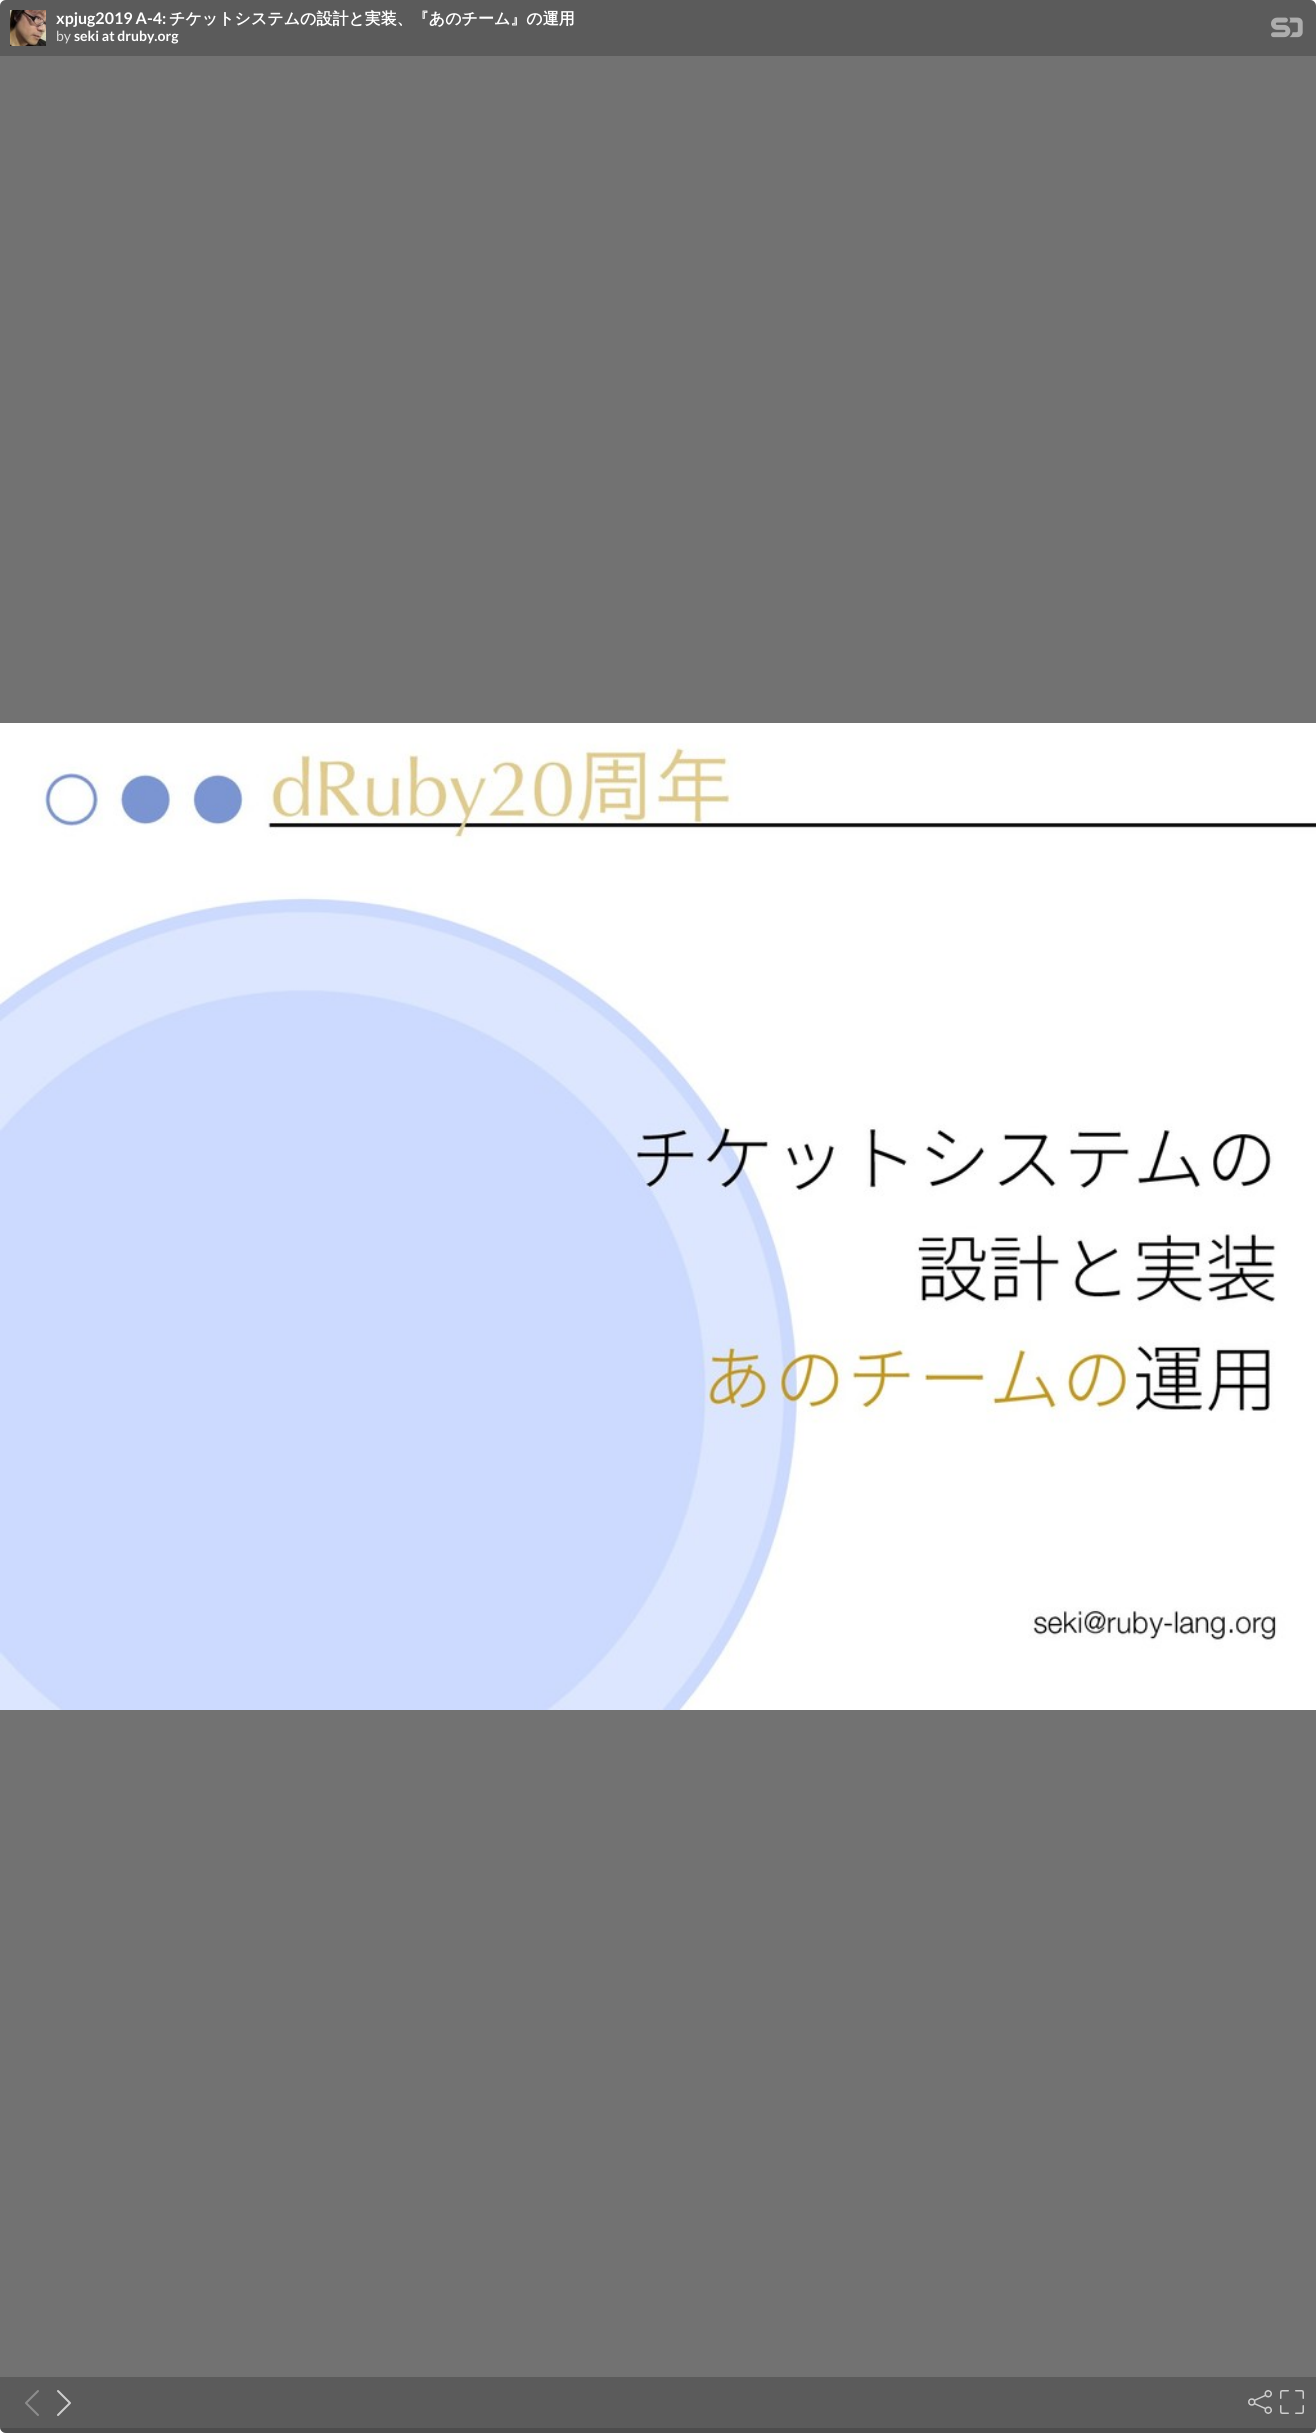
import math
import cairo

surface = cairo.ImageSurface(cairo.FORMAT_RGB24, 1316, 2433)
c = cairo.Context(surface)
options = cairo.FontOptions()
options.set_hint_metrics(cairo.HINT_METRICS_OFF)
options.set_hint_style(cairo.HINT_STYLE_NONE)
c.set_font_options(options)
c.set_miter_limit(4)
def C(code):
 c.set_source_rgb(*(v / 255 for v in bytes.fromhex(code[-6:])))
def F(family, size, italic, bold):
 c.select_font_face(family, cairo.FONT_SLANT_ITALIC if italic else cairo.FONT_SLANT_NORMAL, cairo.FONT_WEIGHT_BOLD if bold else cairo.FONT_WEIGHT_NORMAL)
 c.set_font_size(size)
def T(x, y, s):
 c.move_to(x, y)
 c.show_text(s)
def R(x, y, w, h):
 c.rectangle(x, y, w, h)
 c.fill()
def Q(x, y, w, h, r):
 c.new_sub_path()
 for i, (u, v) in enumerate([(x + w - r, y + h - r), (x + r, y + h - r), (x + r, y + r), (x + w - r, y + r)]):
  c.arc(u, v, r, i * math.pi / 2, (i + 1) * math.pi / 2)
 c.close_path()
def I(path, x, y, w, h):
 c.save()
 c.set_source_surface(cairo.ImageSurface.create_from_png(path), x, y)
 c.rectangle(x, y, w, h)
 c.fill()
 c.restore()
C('ffffff')
c.paint()
C('727272')
Q(0,0,1316,2433,6)
c.fill()
I('1.png',0,723,1316,987)
c.set_source_rgba(0,0,0,0.2)
c.new_path()
c.move_to(6,0)
c.line_to(1310,0)
c.curve_to(1313.5,0,1316,2.5,1316,6)
c.line_to(1316,56)
c.line_to(0,56)
c.line_to(0,6)
c.curve_to(0,2.5,2.5,0,6,0)
c.close_path()
c.fill()
I('2.png',10,10,36,36)
F('Lato',16,0,1)
C('ffffff')
T(56,24,'xpjug2019 A-4:')
F('WenQuanYi Zen Hei',16,0,1)
T(169,24,'チケットシステムの設計と実装、『あのチーム』の運用')
I('3.png',1271,17,32,21)
F('Lato',14,0,0)
C('dedede')
T(56,41,'by')
F('Lato',14,0,1)
C('ffffff')
T(74,41,'seki at druby.org')
c.set_source_rgba(0,0,0,0.2)
c.new_path()
c.move_to(0,2377)
c.line_to(1316,2377)
c.line_to(1316,2427)
c.curve_to(1316,2430.5,1313.5,2433,1310,2433)
c.line_to(6,2433)
c.curve_to(2.5,2433,0,2430.5,0,2427)
c.close_path()
c.fill()
I('4.png',25,2390,14,26)
I('5.png',57,2390,14,26)
I('6.png',1248,2390,24,24)
I('7.png',1280,2390,24,24)
c.save()
Q(0,0,1316,2433,6)
c.clip()
c.set_source_rgba(0,0,0,0.15)
R(0,2428,1316,5)
c.restore()
surface.write_to_png('o.png')
